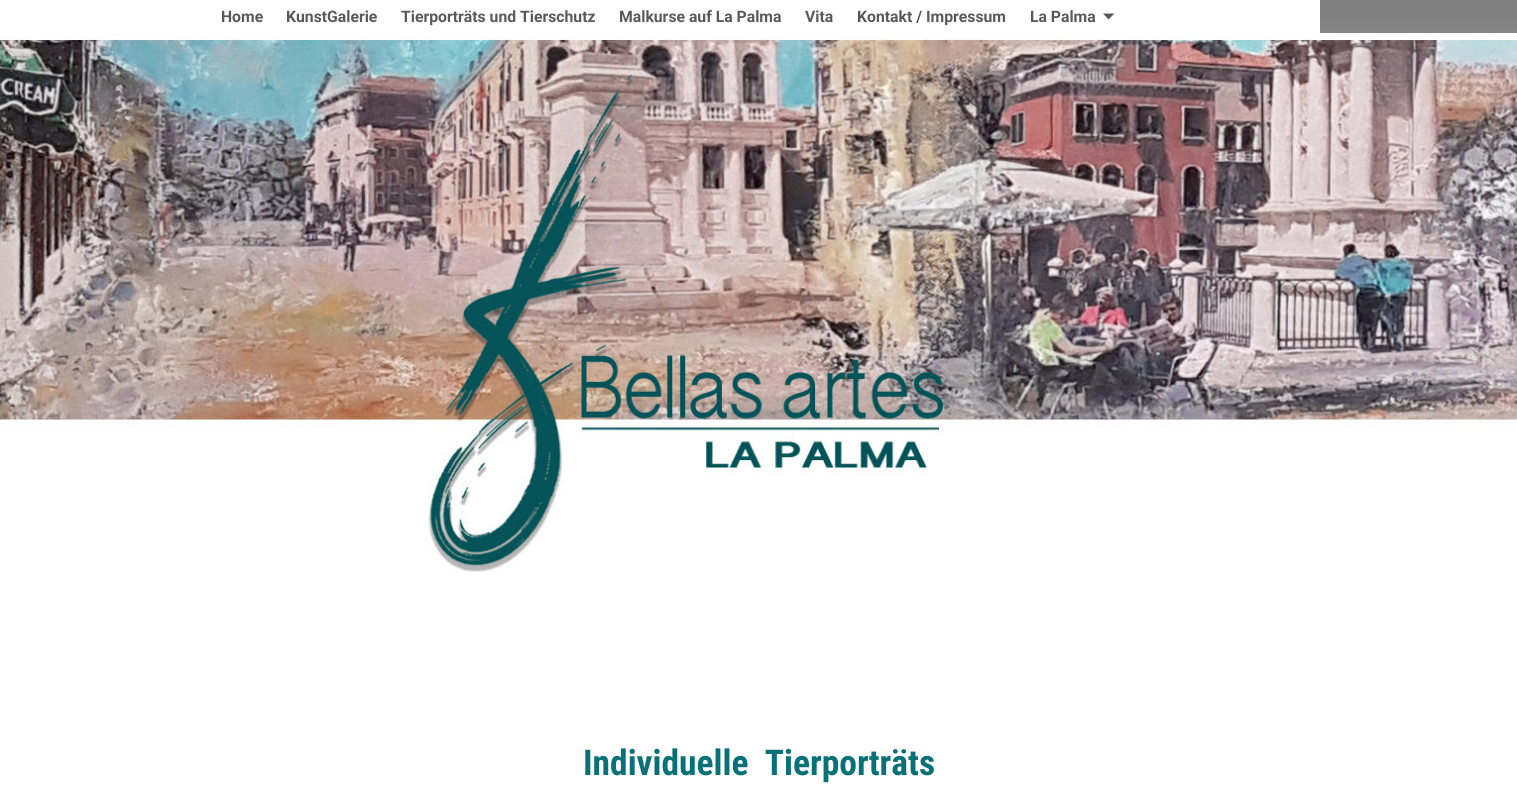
import math
import cairo

surface = cairo.ImageSurface(cairo.FORMAT_RGB24, 1517, 799)
c = cairo.Context(surface)
options = cairo.FontOptions()
options.set_hint_metrics(cairo.HINT_METRICS_OFF)
options.set_hint_style(cairo.HINT_STYLE_NONE)
c.set_font_options(options)
c.set_miter_limit(4)
def C(code):
 c.set_source_rgb(*(v / 255 for v in bytes.fromhex(code[-6:])))
def F(family, size, italic, bold):
 c.select_font_face(family, cairo.FONT_SLANT_ITALIC if italic else cairo.FONT_SLANT_NORMAL, cairo.FONT_WEIGHT_BOLD if bold else cairo.FONT_WEIGHT_NORMAL)
 c.set_font_size(size)
def T(x, y, s):
 c.move_to(x, y)
 c.show_text(s)
def I(path, x, y, w, h):
 c.save()
 c.set_source_surface(cairo.ImageSurface.create_from_png(path), x, y)
 c.rectangle(x, y, w, h)
 c.fill()
 c.restore()
C('ffffff')
c.paint()
I('1.png',1320,0,197,33)
F('Roboto',15.75,0,1)
C('595959')
T(221,22,'Home')
T(286,22,'KunstGalerie')
T(401,22,'Tierporträts und Tierschutz')
T(619,22,'Malkurse auf La Palma')
T(805,22,'Vita')
T(857,22,'Kontakt / Impressum')
T(1030,22,'La Palma')
c.new_path()
c.move_to(1103,13.5)
c.line_to(1114.5,13.5)
c.line_to(1108.5,19.5)
c.close_path()
c.fill()
I('2.png',0,38,1517,534)
F('Roboto Condensed',35.5,0,1)
C('087178')
T(583,775,'Individuelle  Tierporträts')
surface.write_to_png('o.png')
